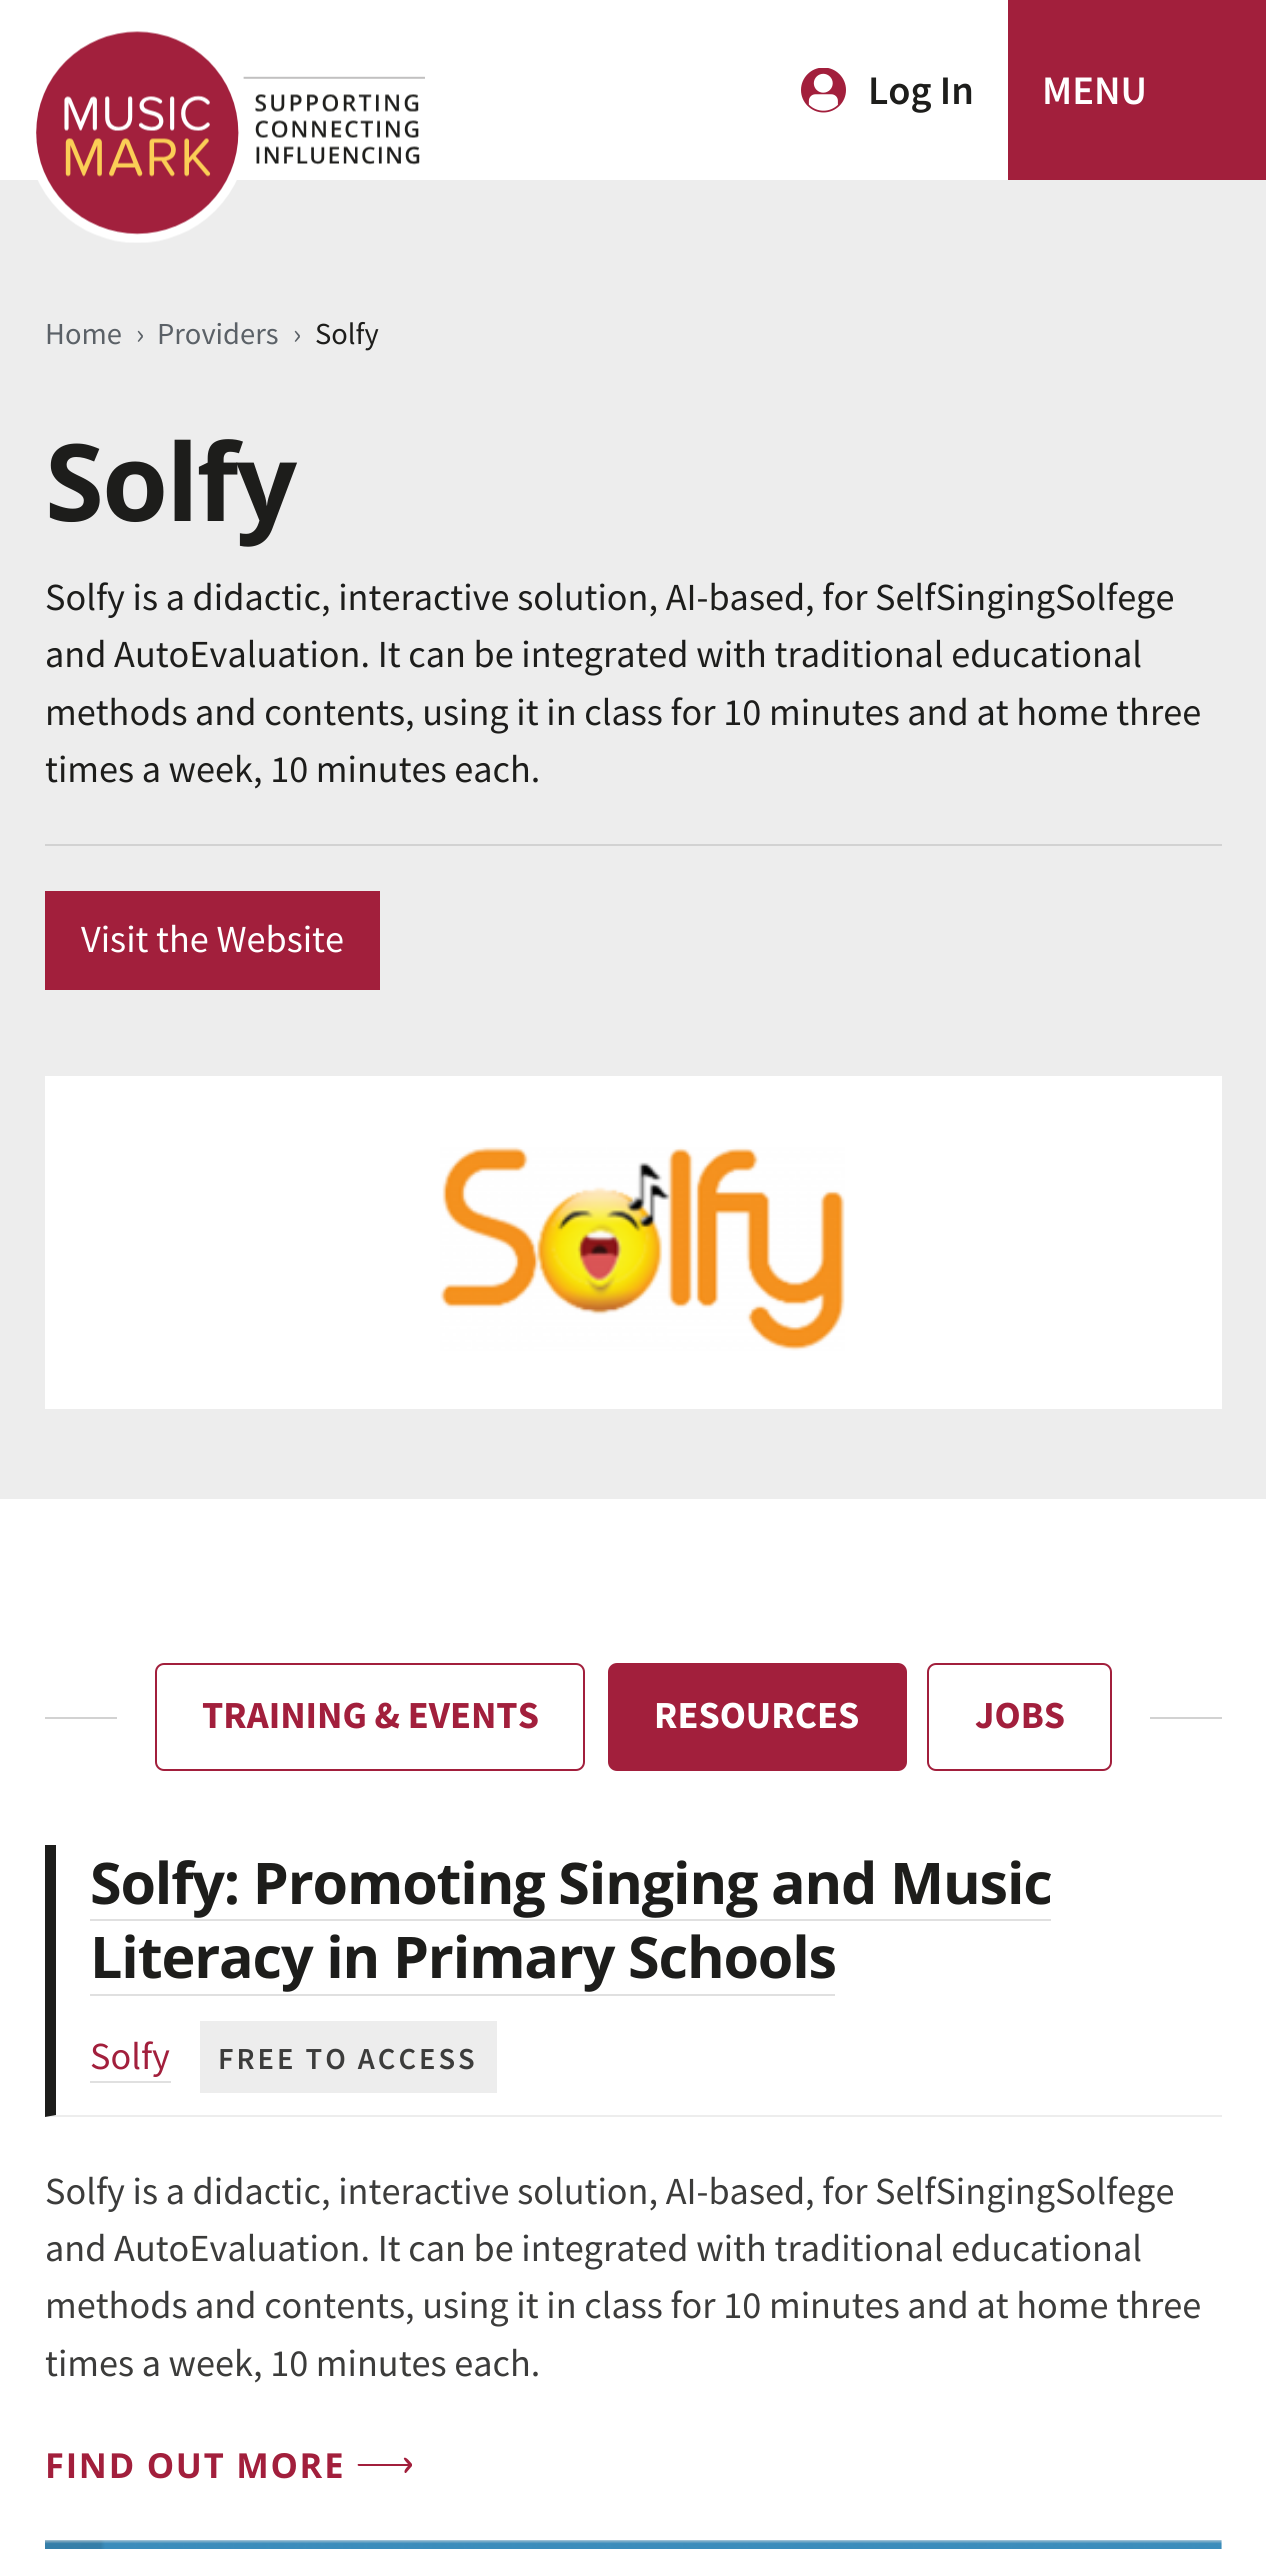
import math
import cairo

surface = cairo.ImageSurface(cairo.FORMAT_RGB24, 1266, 2549)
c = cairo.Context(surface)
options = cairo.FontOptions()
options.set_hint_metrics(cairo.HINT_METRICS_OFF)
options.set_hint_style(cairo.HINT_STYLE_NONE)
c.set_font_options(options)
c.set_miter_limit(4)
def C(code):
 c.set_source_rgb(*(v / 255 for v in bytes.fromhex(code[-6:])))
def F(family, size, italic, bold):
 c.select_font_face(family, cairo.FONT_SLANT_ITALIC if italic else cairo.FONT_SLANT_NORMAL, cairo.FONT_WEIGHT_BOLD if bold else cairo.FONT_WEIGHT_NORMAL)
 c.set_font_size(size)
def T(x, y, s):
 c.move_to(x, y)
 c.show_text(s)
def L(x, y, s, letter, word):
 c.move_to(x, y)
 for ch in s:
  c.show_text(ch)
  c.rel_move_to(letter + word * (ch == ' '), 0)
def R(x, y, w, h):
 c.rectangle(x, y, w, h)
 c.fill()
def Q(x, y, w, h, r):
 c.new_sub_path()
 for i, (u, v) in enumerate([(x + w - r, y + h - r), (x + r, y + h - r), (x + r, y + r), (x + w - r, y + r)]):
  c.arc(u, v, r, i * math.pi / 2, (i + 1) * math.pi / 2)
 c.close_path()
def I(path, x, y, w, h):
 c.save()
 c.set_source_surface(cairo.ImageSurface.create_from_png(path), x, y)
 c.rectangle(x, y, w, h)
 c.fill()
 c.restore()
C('ffffff')
c.paint()
C('ededed')
R(0,180,1266,1319)
I('1.png',36,31,389,212)
I('2.png',801,68,45,45)
F('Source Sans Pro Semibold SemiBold',40.5,0,0)
C('1d1d1b')
T(868,104,'Log In')
C('a21f3c')
R(1008,0,258,180)
C('ffffff')
T(1042,104,'MENU')
F('Source Sans Pro',30.5,0,0)
C('5b6167')
T(45,344,'Home')
T(136,344,'›')
T(157,344,'Providers')
T(293,344,'›')
C('1d1d1b')
T(315,344,'Solfy')
F('Open Sans',107,0,1)
L(45,521,'Solfy',-2,0)
F('Source Sans Pro',38.25,0,0)
T(45,610,'Solfy is a didactic, interactive solution, AI-based, for SelfSingingSolfege')
T(45,667,'and AutoEvaluation. It can be integrated with traditional educational')
T(45,725,'methods and contents, using it in class for 10 minutes and at home three')
T(45,782,'times a week, 10 minutes each.')
C('d2d2d2')
R(45,844,1177,2)
C('a21f3c')
R(45,891,335,99)
C('ffffff')
T(81,952,'Visit the Website')
R(45,1076,1177,333)
I('3.png',440,1147,405,204)
C('d2d2d2')
R(45,1717,1177,2)
C('ffffff')
R(117,1717,1033,2)
Q(156,1664,428,106,8)
C('a21f3c')
c.stroke()
F('Source Sans Pro',38.25,0,1)
T(202,1728,'TRAINING & EVENTS')
Q(609,1664,297,106,8)
c.fill_preserve()
c.stroke()
C('ffffff')
T(654,1728,'RESOURCES')
Q(928,1664,183,106,8)
C('a21f3c')
c.stroke()
T(975,1728,'JOBS')
C('ededed')
c.new_path()
c.move_to(1222,2117)
c.line_to(45,2117)
c.line_to(56,2115)
c.line_to(1222,2115)
c.close_path()
c.fill()
C('1d1d1b')
c.new_path()
c.move_to(45,2117)
c.line_to(45,1845)
c.line_to(56,1845)
c.line_to(56,2115)
c.close_path()
c.fill()
F('Open Sans',57.4,0,1)
L(90,1904,'Solfy: Promoting Singing and Music',-1.15,0)
C('e0e0e0')
R(90,1919,961,2)
C('1d1d1b')
L(90,1978,'Literacy in Primary Schools',-1.15,0)
C('e0e0e0')
R(90,1994,745,2)
F('Source Sans Pro',38.25,0,0)
C('a21f3c')
T(90,2069,'Solfy')
C('e0e0e0')
R(90,2081,81,2)
C('ededed')
R(200,2021,297,72)
F('Source Sans Pro Semibold SemiBold',30.5,0,0)
C('3c3c3b')
L(218,2069,'FREE TO ACCESS',3,0)
F('Source Sans Pro',38.25,0,0)
T(45,2204,'Solfy is a didactic, interactive solution, AI-based, for SelfSingingSolfege')
T(45,2261,'and AutoEvaluation. It can be integrated with traditional educational')
T(45,2318,'methods and contents, using it in class for 10 minutes and at home three')
T(45,2376,'times a week, 10 minutes each.')
F('Open Sans',34.5,0,1)
C('a21f3c')
L(45,2478,'FIND OUT MORE',1.75,0)
c.new_path()
c.move_to(412,2464)
c.curve_to(411,2463,406,2456,404,2458)
c.curve_to(403,2459,407,2463,408,2464)
c.line_to(358,2464)
c.curve_to(357,2465,358,2466,359,2466)
c.line_to(408,2466)
c.curve_to(407,2467,403,2471,405,2473)
c.line_to(406,2473)
c.line_to(412,2466)
c.close_path()
c.fill()
I('4.png',45,2540,1177,9)
surface.write_to_png('o.png')
